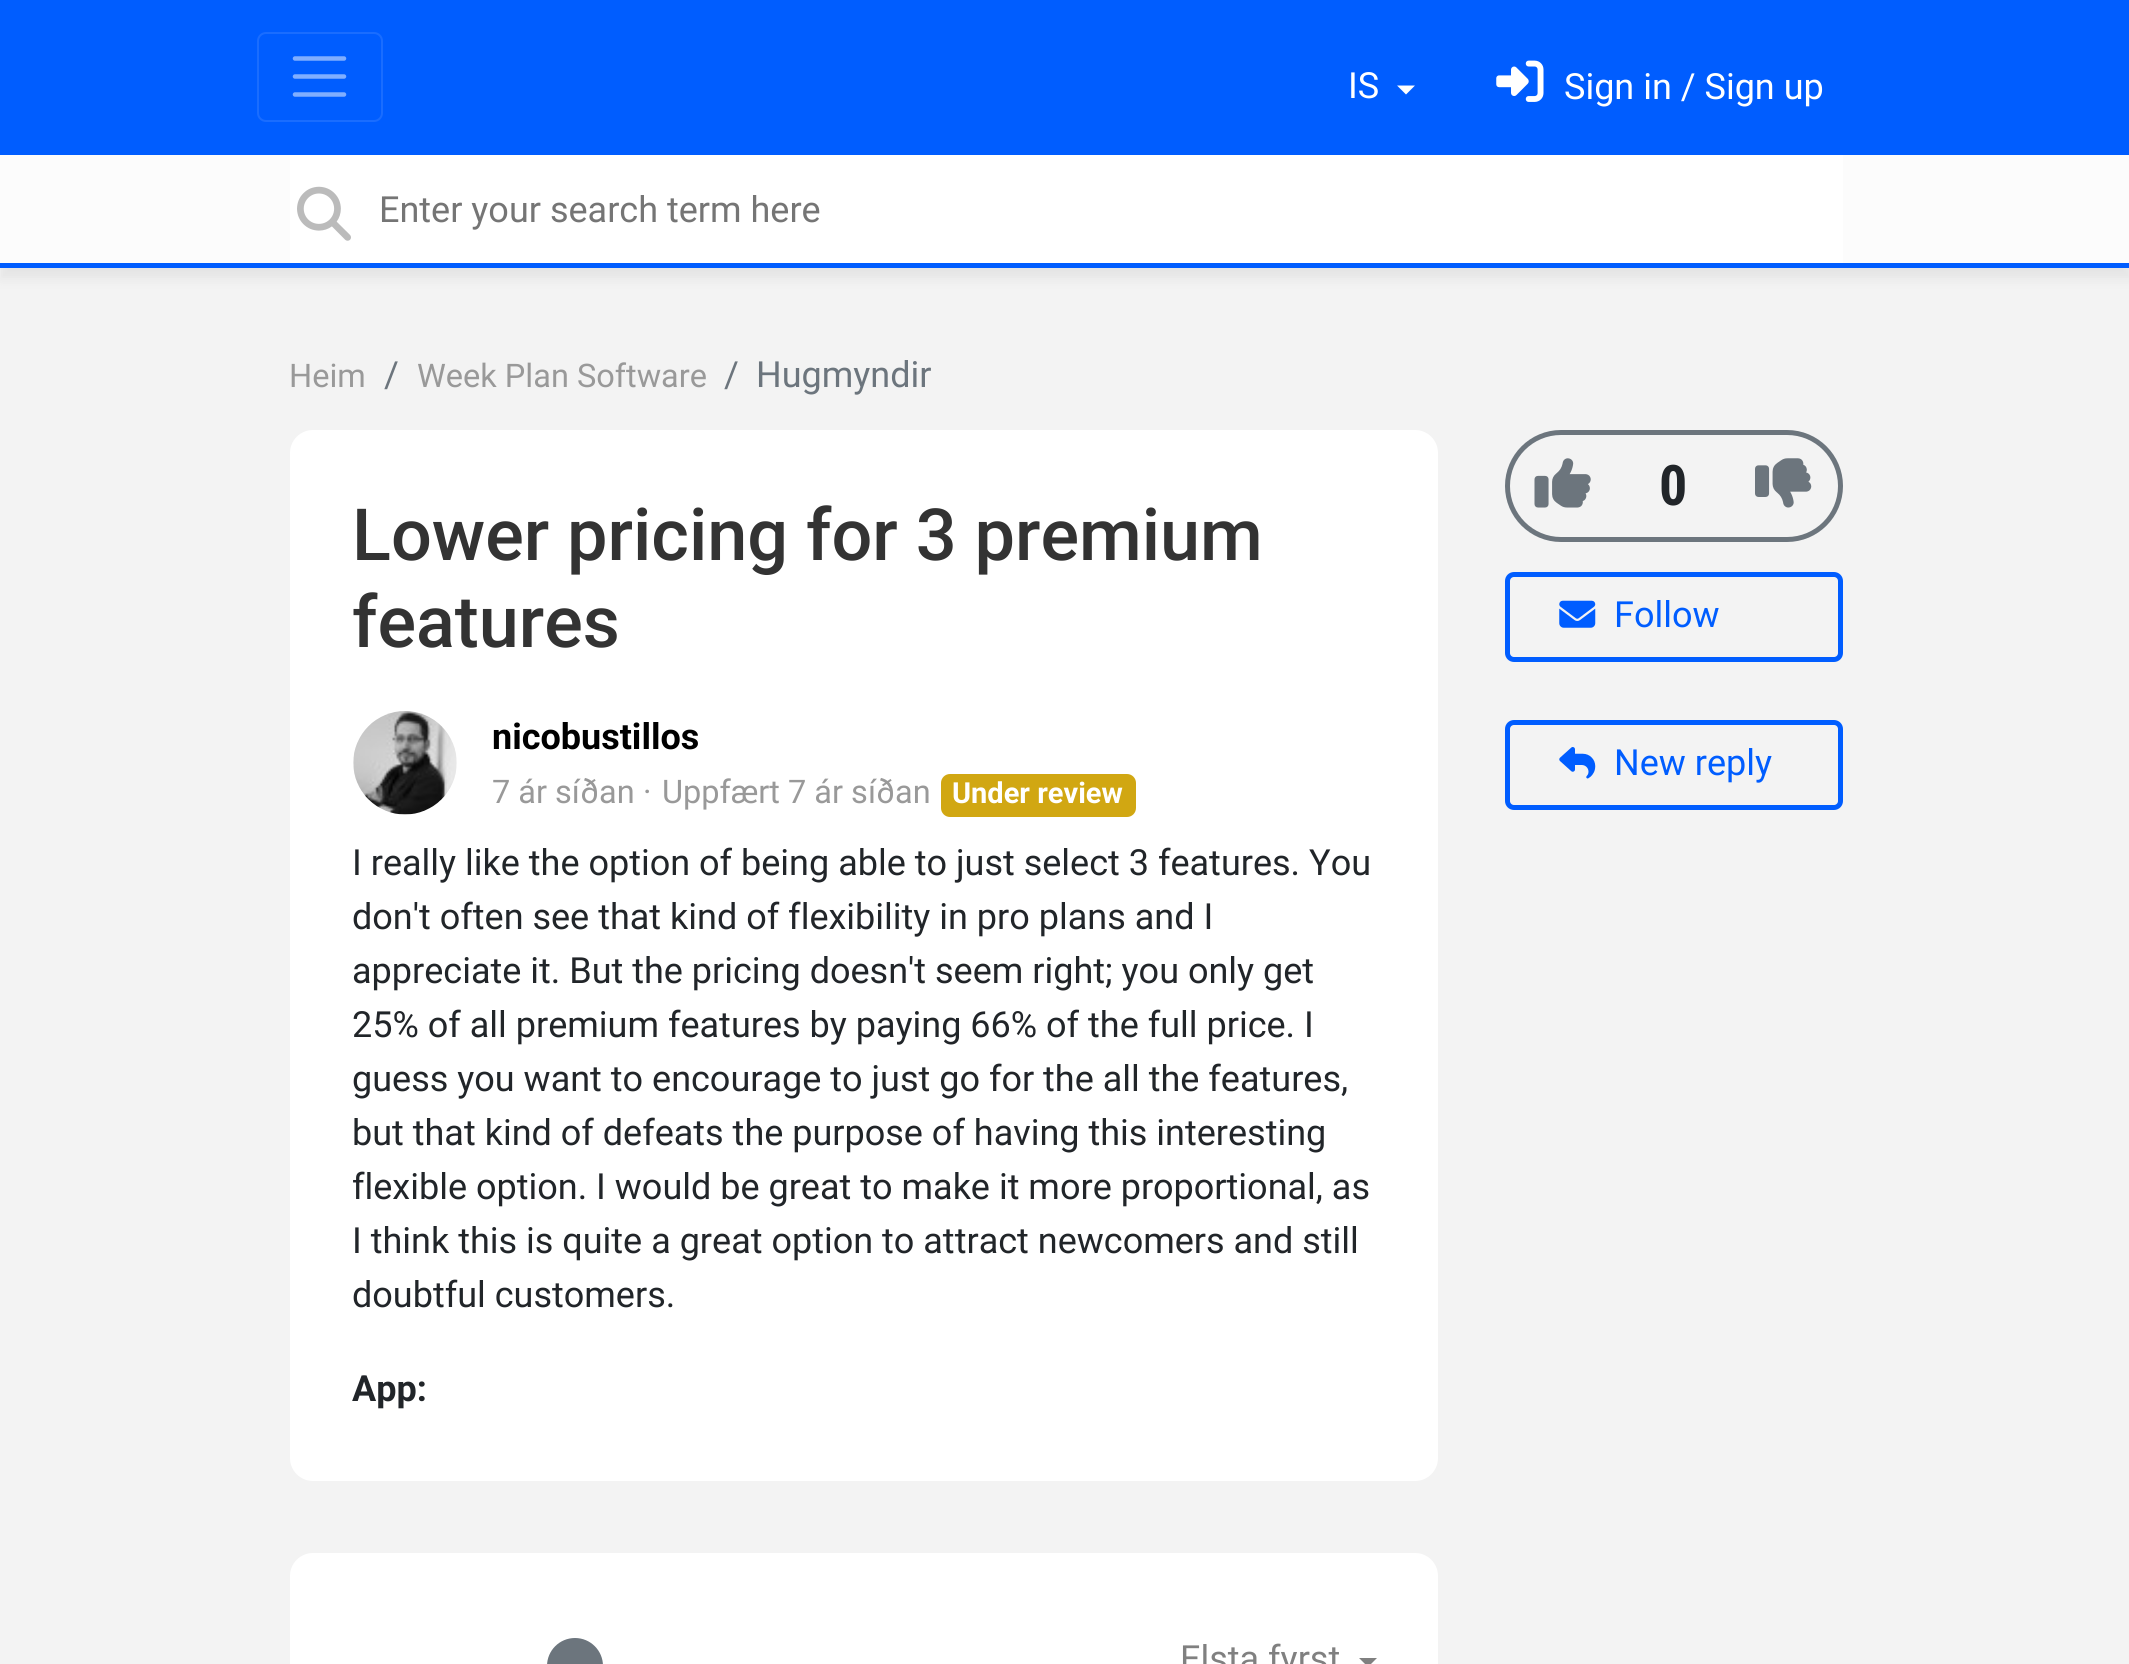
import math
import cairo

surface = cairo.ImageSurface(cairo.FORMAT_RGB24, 2129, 1664)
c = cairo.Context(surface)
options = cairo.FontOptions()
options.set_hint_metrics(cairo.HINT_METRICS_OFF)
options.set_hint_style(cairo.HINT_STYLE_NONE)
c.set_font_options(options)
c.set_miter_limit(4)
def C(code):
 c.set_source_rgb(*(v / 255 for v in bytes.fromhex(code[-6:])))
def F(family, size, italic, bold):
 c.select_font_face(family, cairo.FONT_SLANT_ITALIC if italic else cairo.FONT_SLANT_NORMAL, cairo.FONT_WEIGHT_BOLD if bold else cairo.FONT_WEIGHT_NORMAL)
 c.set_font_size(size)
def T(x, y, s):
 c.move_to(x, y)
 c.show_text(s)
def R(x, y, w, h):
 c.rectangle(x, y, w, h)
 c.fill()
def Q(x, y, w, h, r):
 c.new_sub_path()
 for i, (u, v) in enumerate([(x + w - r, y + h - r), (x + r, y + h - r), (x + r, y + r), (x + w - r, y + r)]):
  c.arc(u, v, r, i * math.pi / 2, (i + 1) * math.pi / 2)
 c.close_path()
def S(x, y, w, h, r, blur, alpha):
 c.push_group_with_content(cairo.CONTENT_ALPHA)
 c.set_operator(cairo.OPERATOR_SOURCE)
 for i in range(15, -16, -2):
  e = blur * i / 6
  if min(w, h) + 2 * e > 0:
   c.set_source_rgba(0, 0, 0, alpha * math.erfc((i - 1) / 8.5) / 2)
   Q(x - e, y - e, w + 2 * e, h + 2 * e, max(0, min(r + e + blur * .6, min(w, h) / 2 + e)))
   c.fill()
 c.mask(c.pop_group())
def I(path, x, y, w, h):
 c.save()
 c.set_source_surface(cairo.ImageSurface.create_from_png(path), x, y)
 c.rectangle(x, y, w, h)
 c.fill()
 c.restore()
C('f3f3f3')
c.paint()
C('005dff')
R(0,0,2129,155)
Q(258,33,124,88,8)
C('1a6dff')
c.stroke()
c.new_path()
c.move_to(295,58.5)
c.line_to(344,58.5)
c.move_to(295,76.5)
c.line_to(344,76.5)
c.move_to(295,94.5)
c.line_to(344,94.5)
C('80aeff')
c.set_line_width(4.5)
c.set_line_cap(cairo.LINE_CAP_ROUND)
c.stroke()
F('Roboto',36,0,0)
C('ffffff')
T(1348,98,'IS')
c.new_path()
c.move_to(1397,85.5)
c.line_to(1415,85.5)
c.line_to(1406,94.5)
c.close_path()
c.fill()
I('1.png',1496,60,48,42)
T(1564,99,'Sign in / Sign up')
C('646464')
S(0,167,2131,112,0,5.5,.1)
C('fcfcfc')
R(0,155,2129,108)
C('005dff')
R(0,263,2129,5)
C('ffffff')
R(290,155,1553,108)
I('2.png',297,186,54,55)
C('757575')
T(379,222,'Enter your search term here')
F('Roboto',32.5,0,0)
C('999999')
T(289,387,'Heim')
F('Roboto',36,0,0)
C('6c757d')
T(384,387,'/')
F('Roboto',32.5,0,0)
C('999999')
T(417,387,'Week Plan Software')
F('Roboto',36,0,0)
C('6c757d')
T(724,387,'/')
T(756,387,'Hugmyndir')
C('ffffff')
Q(290,430,1148,1051,23)
c.fill()
F('Roboto Medium',72,0,0)
C('333333')
T(352,560,'Lower pricing for 3 premium')
T(352,647,'features')
I('3.png',353,711,104,104)
F('Roboto',36,0,1)
C('000000')
T(492,749,'nicobustillos')
F('Roboto',32.5,0,0)
C('999999')
T(492,803,'7 ár síðan')
T(643,803,'·')
T(662,803,'Uppfært 7 ár síðan')
C('d1a712')
Q(941,774,195,43,9)
c.fill()
F('Roboto',29,0,1)
C('ffffff')
T(952,803,'Under review')
F('Roboto',36,0,0)
C('212529')
T(352,875,'I really like the option of being able to just select 3 features. You')
T(352,929,'don\'t often see that kind of flexibility in pro plans and I')
T(352,983,'appreciate it. But the pricing doesn\'t seem right; you only get')
T(352,1037,'25% of all premium features by paying 66% of the full price. I')
T(352,1091,'guess you want to encourage to just go for the all the features,')
T(352,1145,'but that kind of defeats the purpose of having this interesting')
T(352,1199,'flexible option. I would be great to make it more proportional, as')
T(352,1253,'I think this is quite a great option to attract newcomers and still')
T(352,1307,'doubtful customers.')
F('Roboto',36,0,1)
T(352,1401,'App:')
Q(1507.5,432.5,333,107,53.5)
C('6c757d')
c.set_line_width(5)
c.set_line_cap(cairo.LINE_CAP_BUTT)
c.stroke()
I('4.png',1534,458,57,50)
F('Roboto Condensed',56,0,1)
C('212529')
T(1659,505,'0')
I('5.png',1755,458,57,50)
Q(1507.5,574.5,333,85,6.5)
C('005dff')
c.stroke()
I('6.png',1559,600,37,28)
F('Roboto',36,0,0)
T(1614,627,'Follow')
Q(1507.5,722.5,333,85,6.5)
c.stroke()
I('7.png',1559,747,37,32)
T(1614,775,'New reply')
C('ffffff')
Q(290,1553,1148,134,23)
c.fill()
C('6c757d')
Q(547,1638,56,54,28)
c.fill()
C('808080')
T(1180,1671,'Elsta fyrst')
c.new_path()
c.move_to(1359,1658)
c.line_to(1377,1658)
c.line_to(1368,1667)
c.close_path()
c.fill()
surface.write_to_png('o.png')
